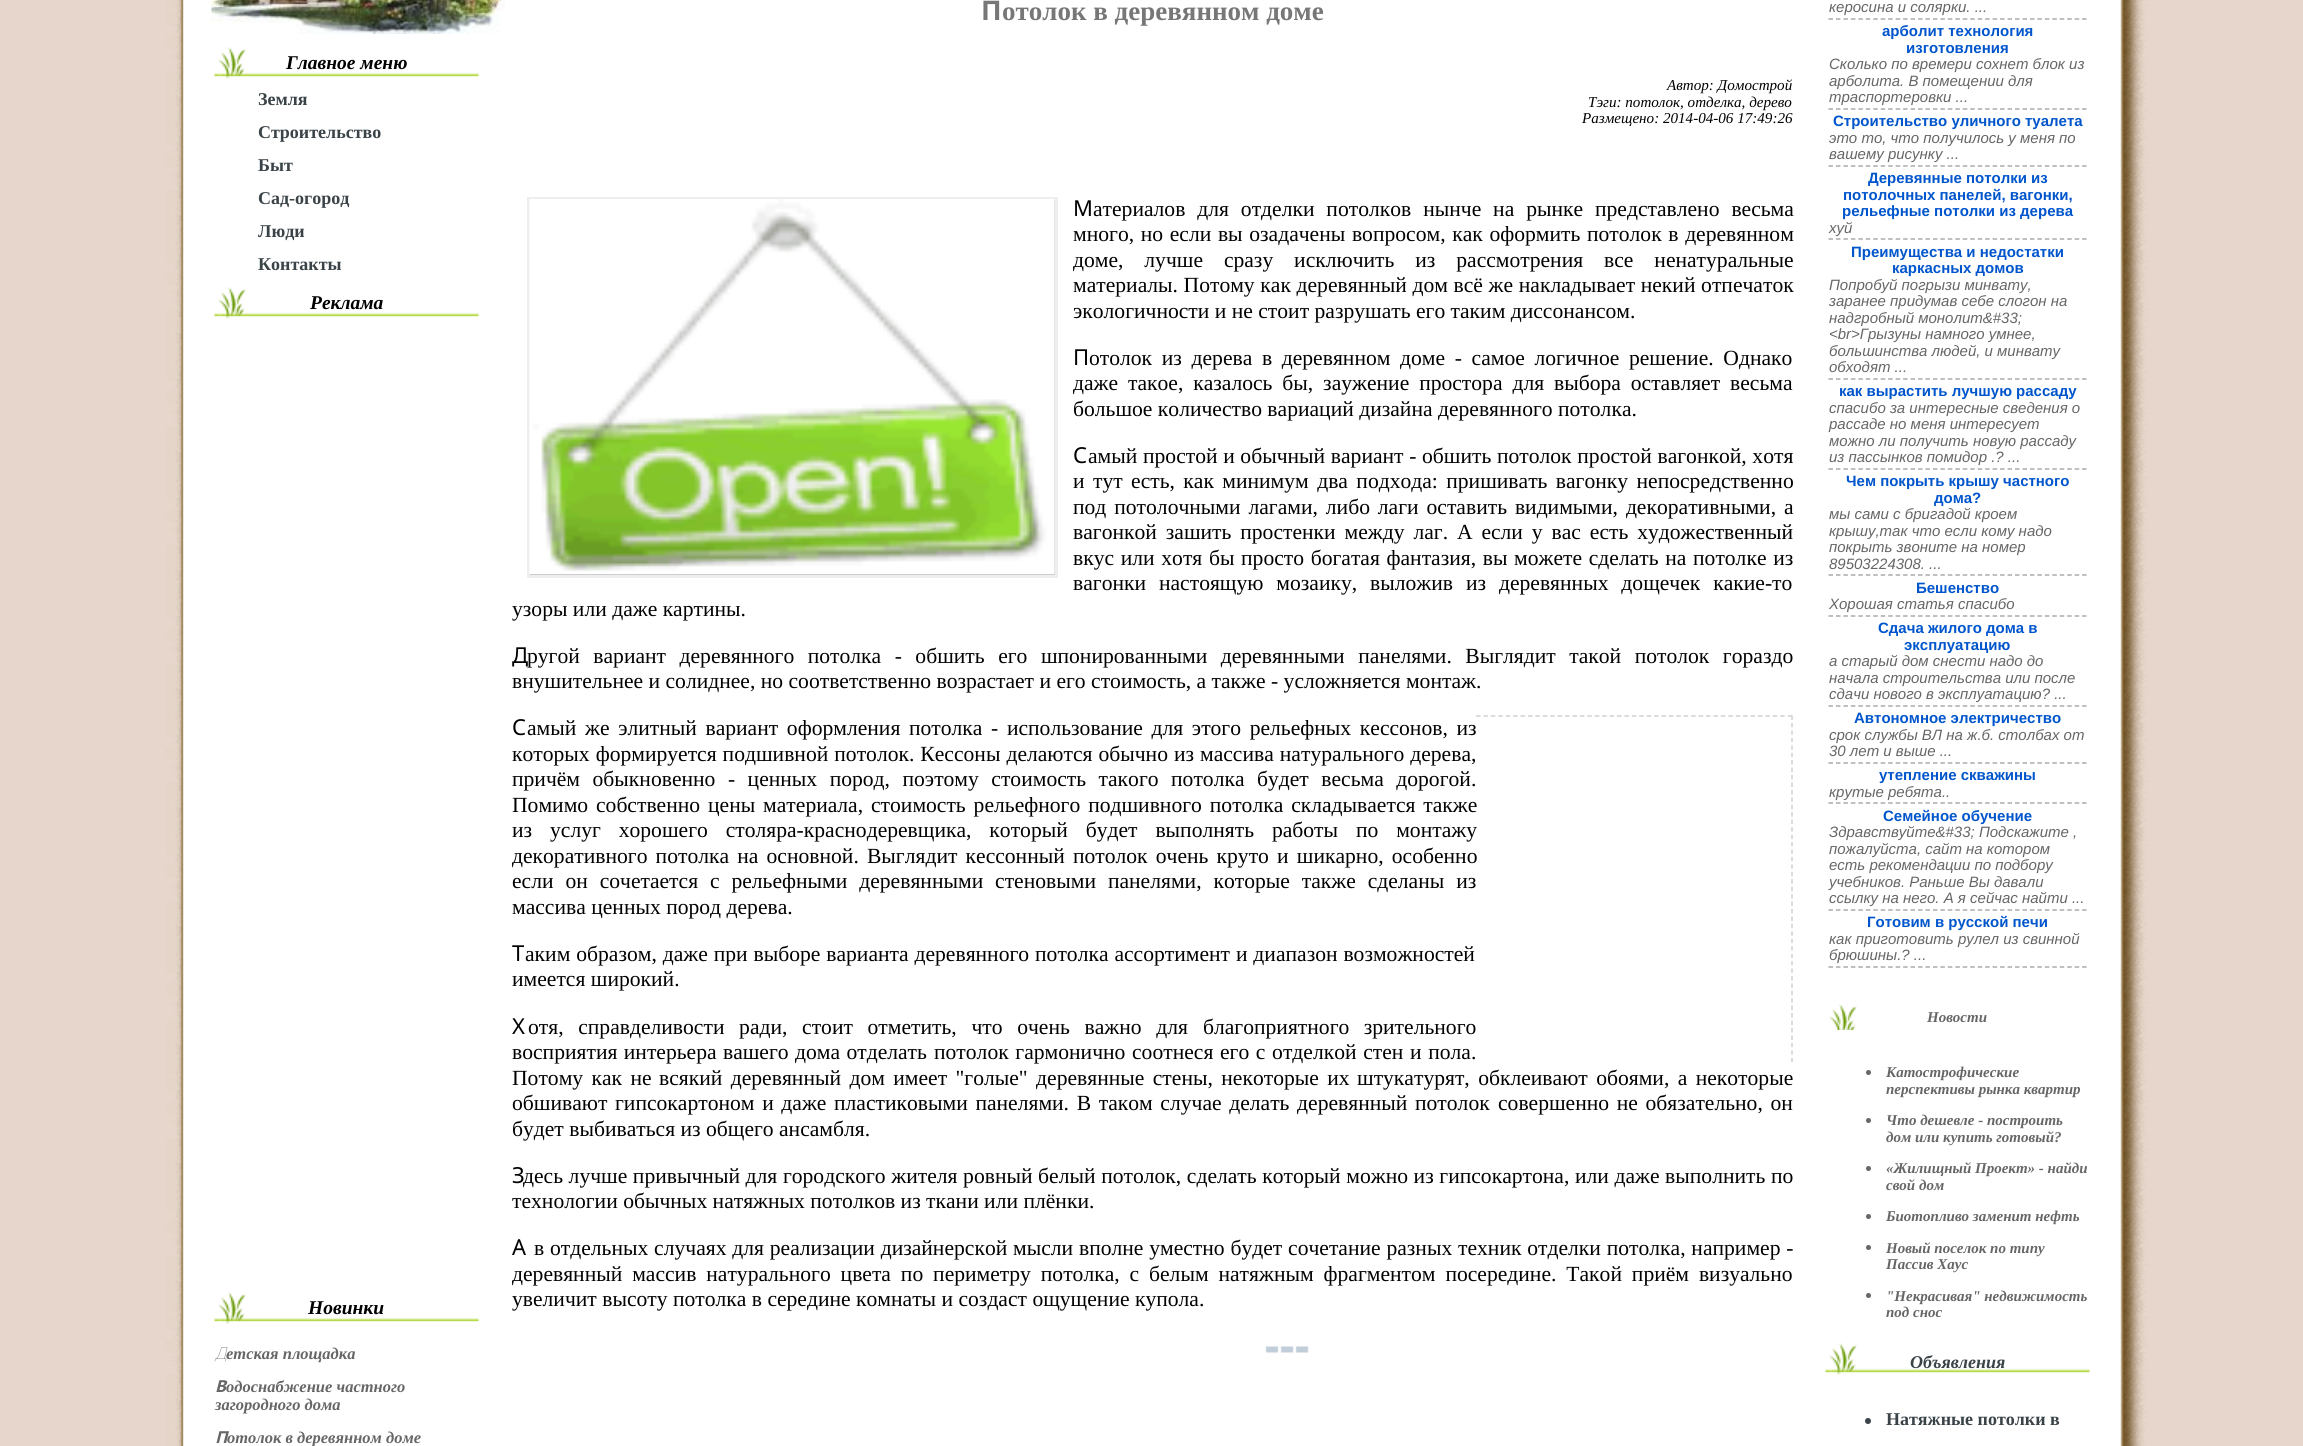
import math
import cairo

surface = cairo.ImageSurface(cairo.FORMAT_RGB24, 2303, 1446)
c = cairo.Context(surface)
options = cairo.FontOptions()
options.set_hint_metrics(cairo.HINT_METRICS_OFF)
options.set_hint_style(cairo.HINT_STYLE_NONE)
c.set_font_options(options)
c.set_miter_limit(4)
def C(code):
 c.set_source_rgb(*(v / 255 for v in bytes.fromhex(code[-6:])))
def F(family, size, italic, bold):
 c.select_font_face(family, cairo.FONT_SLANT_ITALIC if italic else cairo.FONT_SLANT_NORMAL, cairo.FONT_WEIGHT_BOLD if bold else cairo.FONT_WEIGHT_NORMAL)
 c.set_font_size(size)
def T(x, y, s):
 c.move_to(x, y)
 c.show_text(s)
def L(x, y, s, letter, word):
 c.move_to(x, y)
 for ch in s:
  c.show_text(ch)
  c.rel_move_to(letter + word * (ch == ' '), 0)
def I(path, x, y, w, h):
 c.save()
 c.set_source_surface(cairo.ImageSurface.create_from_png(path), x, y)
 c.rectangle(x, y, w, h)
 c.fill()
 c.restore()
C('ffffff')
c.paint()
I('1.png',0,0,184,1446)
F('Noto Sans',27,0,1)
C('777777')
T(981,20,'П')
F('Liberation Serif',27,0,1)
T(1002,20,'отолок в деревянном доме')
F('Liberation Serif',15.1,1,0)
C('000000')
T(1667,90,'Автор: Домострой')
T(1588,107,'Тэги: потолок, отделка, дерево')
T(1582,123,'Размещено: 2014-04-06 17:49:26')
C('cccccc')
c.rectangle(528.5,198.5,528,378)
c.fill_preserve()
C('eeeeee')
c.set_line_width(3)
c.stroke()
I('2.png',529,199,526,375)
F('Noto Sans',22,0,0)
C('000000')
T(1073,216,'М')
F('Liberation Serif',21.6,0,0)
L(1093,216,'атериалов для отделки потолков нынче на рынке представлено весьма',0,6.5)
L(1073,241,'много, но если вы озадачены вопросом, как оформить потолок в деревянном',0,1.25)
L(1073,267,'доме, лучше сразу исключить из рассмотрения все ненатуральные',0,15.5)
L(1073,292,'материалы. Потому как деревянный дом всё же накладывает некий отпечаток',0,.25)
T(1073,318,'экологичности и не стоит разрушать его таким диссонансом.')
F('Noto Sans',22,0,0)
T(1073,365,'П')
F('Liberation Serif',21.6,0,0)
L(1089,365,'отолок из дерева в деревянном доме - самое логичное решение. Однако',0,4.25)
L(1073,390,'даже такое, казалось бы, заужение простора для выбора оставляет весьма',0,4.5)
T(1073,416,'большое количество вариаций дизайна деревянного потолка.')
F('Noto Sans',22,0,0)
T(1073,463,'С')
F('Liberation Serif',21.6,0,0)
L(1088,463,'амый простой и обычный вариант - обшить потолок простой вагонкой, хотя',0,.25)
L(1073,488,'и тут есть, как минимум два подхода: пришивать вагонку непосредственно',0,3)
L(1073,514,'под потолочными лагами, либо лаги оставить видимыми, декоративными, а',0,2.5)
L(1073,539,'вагонкой зашить простенки между лаг. А если у вас есть художественный',0,3.5)
L(1073,565,'вкус или хотя бы просто богатая фантазия, вы можете сделать на потолке из',0,1.25)
L(1073,590,'вагонки настоящую мозаику, выложив из деревянных дощечек какие-то',0,7.5)
T(512,616,'узоры или даже картины.')
F('Noto Sans',22,0,0)
T(512,663,'Д')
F('Liberation Serif',21.6,0,0)
L(527,663,'ругой вариант деревянного потолка - обшить его шпонированными деревянными панелями. Выглядит такой потолок гораздо',0,8.1)
T(512,688,'внушительнее и солиднее, но соответственно возрастает и его стоимость, а также - усложняется монтаж.')
F('Noto Sans',22,0,0)
T(512,735,'С')
F('Liberation Serif',21.6,0,0)
L(527,735,'амый же элитный вариант оформления потолка - использование для этого рельефных кессонов, из',0,3.25)
L(512,761,'которых формируется подшивной потолок. Кессоны делаются обычно из массива натурального дерева,',0,.6)
L(512,786,'причём обыкновенно - ценных пород, поэтому стоимость такого потолка будет весьма дорогой.',0,7.1)
L(512,812,'Помимо собственно цены материала, стоимость рельефного подшивного потолка складывается также',0,2.5)
L(512,837,'из услуг хорошего столяра-краснодеревщика, который будет выполнять работы по монтажу',0,12.5)
L(512,863,'декоративного потолка на основной. Выглядит кессонный потолок очень круто и шикарно, особенно',0,2.75)
L(512,888,'если он сочетается с рельефными деревянными стеновыми панелями, которые также сделаны из',0,6.5)
T(512,914,'массива ценных пород дерева.')
c.new_path()
c.move_to(1476,716)
c.line_to(1792.5,716)
C('d1d1d1')
c.set_line_width(1.5)
c.set_dash([4.5,2.92])
c.stroke()
c.new_path()
c.move_to(1792,715.5)
c.line_to(1792,1062)
c.set_dash([4.5,2.94])
c.stroke()
F('Noto Sans',22,0,0)
C('000000')
T(512,961,'Т')
F('Liberation Serif',21.6,0,0)
L(525,961,'аким образом, даже при выборе варианта деревянного потолка ассортимент и диапазон возможностей',0,.5)
T(512,986,'имеется широкий.')
F('Noto Sans',22,0,0)
T(512,1034,'Х')
F('Liberation Serif',21.6,0,0)
L(528,1034,'отя, справделивости ради, стоит отметить, что очень важно для',0,9.25)
L(1203,1034,'благоприятного зрительного',0,9)
L(512,1059,'восприятия интерьера вашего дома отделать',0,1)
L(934,1059,'потолок гармонично соотнеся его с отделкой стен и пола.',0,1.25)
L(512,1085,'Потому как не',0,3)
L(659,1085,'всякий деревянный дом имеет "голые" деревянные стены, некоторые их',0,3)
L(1357,1085,'штукатурят, обклеивают обоями, а некоторые',0,3)
L(512,1110,'обшивают гипсокартоном и даже',0,2.25)
L(834,1110,'пластиковыми панелями. В таком случае делать деревянный потолок',0,2.25)
L(1498,1110,'совершенно не обязательно, он',0,2.25)
T(512,1136,'будет выбиваться из общего ансамбля.')
F('Noto Sans',22,0,0)
T(512,1183,'З')
F('Liberation Serif',21.6,0,0)
L(523,1183,'десь лучше привычный для городского жителя ровный белый потолок, сделать который можно из гипсокартона, или даже выполнить по',0,.2)
T(512,1208,'технологии обычных натяжных потолков из ткани или плёнки.')
F('Noto Sans',22,0,0)
T(512,1255,'А')
F('Liberation Serif',21.6,0,0)
L(534,1255,'в отдельных случаях для реализации дизайнерской мысли вполне уместно будет сочетание разных техник отделки потолка, например -',0,.4)
L(512,1281,'деревянный массив натурального цвета по периметру потолка, с белым натяжным фрагментом посередине. Такой приём визуально',0,4.5)
T(512,1306,'увеличит высоту потолка в середине комнаты и создаст ощущение купола.')
I('3.png',1265,1346,44,7)
I('4.png',211,0,294,34)
I('5.png',214,47,265,32)
F('Liberation Serif',19.5,1,1)
T(286,69,'Главное меню')
F('Liberation Serif',18,0,1)
C('3a4348')
T(258,105,'Земля')
T(258,138,'Строительство')
T(258,171,'Быт')
T(258,204,'Сад-огород')
T(258,237,'Люди')
T(258,270,'Контакты')
I('5.png',214,287,265,32)
F('Liberation Serif',19.5,1,1)
C('000000')
T(310,309,'Реклама')
I('5.png',214,1292,265,32)
T(308,1314,'Новинки')
F('Noto Sans Thin',16.5,1,0)
C('666666')
T(215,1359,'Д')
F('Liberation Serif',16.5,1,1)
T(226,1359,'етская площадка')
F('Noto Sans',16.5,1,1)
T(215,1392,'В')
F('Liberation Serif',16.5,1,1)
T(226,1392,'одоснабжение частного')
T(215,1410,'загородного дома')
F('Noto Sans',16.5,1,1)
T(215,1443,'П')
F('Liberation Serif',16.5,1,1)
T(227,1443,'отолок в деревянном доме')
c.new_path()
c.move_to(1828.5,19)
c.line_to(2086.5,19)
C('aaaaaa')
c.set_dash([4.5,2.96])
c.stroke()
F('Liberation Sans',15,1,0)
C('666666')
T(1829,12,'керосина и солярки. ...')
c.new_path()
c.move_to(1828.5,109)
c.line_to(2086.5,109)
C('aaaaaa')
c.stroke()
F('Liberation Sans',15,0,1)
C('0055cc')
T(1882,36,'арболит технология')
T(1906,53,'изготовления')
F('Liberation Sans',15,1,0)
C('666666')
T(1829,69,'Сколько по времери сохнет блок из')
T(1829,86,'арболита. В помещении для')
T(1829,102,'траспортеровки ...')
c.new_path()
c.move_to(1828.5,166)
c.line_to(2086.5,166)
C('aaaaaa')
c.stroke()
F('Liberation Sans',15,0,1)
C('0055cc')
T(1833,126,'Строительство уличного туалета')
F('Liberation Sans',15,1,0)
C('666666')
T(1829,143,'это то, что получилось у меня по')
T(1829,159,'вашему рисунку ...')
c.new_path()
c.move_to(1828.5,239)
c.line_to(2086.5,239)
C('aaaaaa')
c.stroke()
F('Liberation Sans',15,0,1)
C('0055cc')
T(1868,183,'Деревянные потолки из')
T(1843,200,'потолочных панелей, вагонки,')
T(1842,216,'рельефные потолки из дерева')
F('Liberation Sans',15,1,0)
C('666666')
T(1829,233,'хуй')
c.new_path()
c.move_to(1828.5,379)
c.line_to(2086.5,379)
C('aaaaaa')
c.stroke()
F('Liberation Sans',15,0,1)
C('0055cc')
T(1851,257,'Преимущества и недостатки')
T(1892,273,'каркасных домов')
F('Liberation Sans',15,1,0)
C('666666')
T(1829,290,'Попробуй погрызи минвату,')
T(1829,306,'заранее придумав себе слогон на')
T(1829,323,'надгробный монолит&#33;')
T(1829,339,'<br>Грызуны намного умнее,')
T(1829,356,'большинства людей, и минвату')
T(1829,372,'обходят ...')
c.new_path()
c.move_to(1828.5,469)
c.line_to(2086.5,469)
C('aaaaaa')
c.stroke()
F('Liberation Sans',15,0,1)
C('0055cc')
T(1839,396,'как вырастить лучшую рассаду')
F('Liberation Sans',15,1,0)
C('666666')
T(1829,413,'спасибо за интересные сведения о')
T(1829,429,'рассаде но меня интересует')
T(1829,446,'можно ли получить новую рассаду')
T(1829,462,'из пассынков помидор .? ...')
c.new_path()
c.move_to(1828.5,575)
c.line_to(2086.5,575)
C('aaaaaa')
c.stroke()
F('Liberation Sans',15,0,1)
C('0055cc')
T(1846,486,'Чем покрыть крышу частного')
T(1934,503,'дома?')
F('Liberation Sans',15,1,0)
C('666666')
T(1829,519,'мы сами с бригадой кроем')
T(1829,536,'крышу,так что если кому надо')
T(1829,552,'покрыть звоните на номер')
T(1829,569,'89503224308. ...')
c.new_path()
c.move_to(1828.5,616)
c.line_to(2086.5,616)
C('aaaaaa')
c.stroke()
F('Liberation Sans',15,0,1)
C('0055cc')
T(1916,593,'Бешенство')
F('Liberation Sans',15,1,0)
C('666666')
T(1829,609,'Хорошая статья спасибо')
c.new_path()
c.move_to(1828.5,706)
c.line_to(2086.5,706)
C('aaaaaa')
c.stroke()
F('Liberation Sans',15,0,1)
C('0055cc')
T(1878,633,'Сдача жилого дома в')
T(1904,650,'эксплуатацию')
F('Liberation Sans',15,1,0)
C('666666')
T(1829,666,'а старый дом снести надо до')
T(1829,683,'начала строительства или после')
T(1829,699,'сдачи нового в эксплуатацию? ...')
c.new_path()
c.move_to(1828.5,763)
c.line_to(2086.5,763)
C('aaaaaa')
c.stroke()
F('Liberation Sans',15,0,1)
C('0055cc')
T(1854,723,'Автономное электричество')
F('Liberation Sans',15,1,0)
C('666666')
T(1829,740,'срок службы ВЛ на ж.б. столбах от')
T(1829,756,'30 лет и выше ...')
c.new_path()
c.move_to(1828.5,803)
c.line_to(2086.5,803)
C('aaaaaa')
c.stroke()
F('Liberation Sans',15,0,1)
C('0055cc')
T(1879,780,'утепление скважины')
F('Liberation Sans',15,1,0)
C('666666')
T(1829,797,'крутые ребята..')
c.new_path()
c.move_to(1828.5,910)
c.line_to(2086.5,910)
C('aaaaaa')
c.stroke()
F('Liberation Sans',15,0,1)
C('0055cc')
T(1883,821,'Семейное обучение')
F('Liberation Sans',15,1,0)
C('666666')
T(1829,837,'Здравствуйте&#33; Подскажите ,')
T(1829,854,'пожалуйста, сайт на котором')
T(1829,870,'есть рекомендации по подбору')
T(1829,887,'учебников. Раньше Вы давали')
T(1829,903,'ссылку на него. А я сейчас найти ...')
c.new_path()
c.move_to(1828.5,967)
c.line_to(2086.5,967)
C('aaaaaa')
c.stroke()
F('Liberation Sans',15,0,1)
C('0055cc')
T(1867,927,'Готовим в русской печи')
F('Liberation Sans',15,1,0)
C('666666')
T(1829,944,'как приготовить рулел из свинной')
T(1829,960,'брюшины.? ...')
I('6.png',1829,1004,28,26)
F('Liberation Serif',15,1,1)
T(1927,1022,'Новости')
c.new_path()
c.arc(1868.5,1072.5,2.5,0,2 * math.pi)
c.fill()
T(1886,1077,'Катострофические')
T(1886,1094,'перспективы рынка квартир')
c.new_path()
c.arc(1868.5,1120.5,2.5,0,2 * math.pi)
c.fill()
T(1886,1125,'Что дешевле - построить')
T(1886,1142,'дом или купить готовый?')
c.new_path()
c.arc(1868.5,1168.5,2.5,0,2 * math.pi)
c.fill()
T(1886,1173,'«Жилищный Проект» - найди')
T(1886,1190,'свой дом')
c.new_path()
c.arc(1868.5,1216.5,2.5,0,2 * math.pi)
c.fill()
T(1886,1221,'Биотопливо заменит нефть')
c.new_path()
c.arc(1868.5,1247.5,2.5,0,2 * math.pi)
c.fill()
T(1886,1253,'Новый поселок по типу')
T(1886,1269,'Пассив Хаус')
c.new_path()
c.arc(1868.5,1295.5,2.5,0,2 * math.pi)
c.fill()
T(1886,1301,'"Некрасивая" недвижимость')
T(1886,1317,'под снос')
I('5.png',1825,1343,265,32)
F('Liberation Serif',18,1,1)
C('3a4348')
T(1910,1368,'Объявления')
c.new_path()
c.arc(1868,1421,3,0,2 * math.pi)
c.fill()
F('Liberation Serif',18,0,1)
T(1886,1425,'Натяжные потолки в')
I('7.png',2120,0,183,1446)
surface.write_to_png('o.png')
